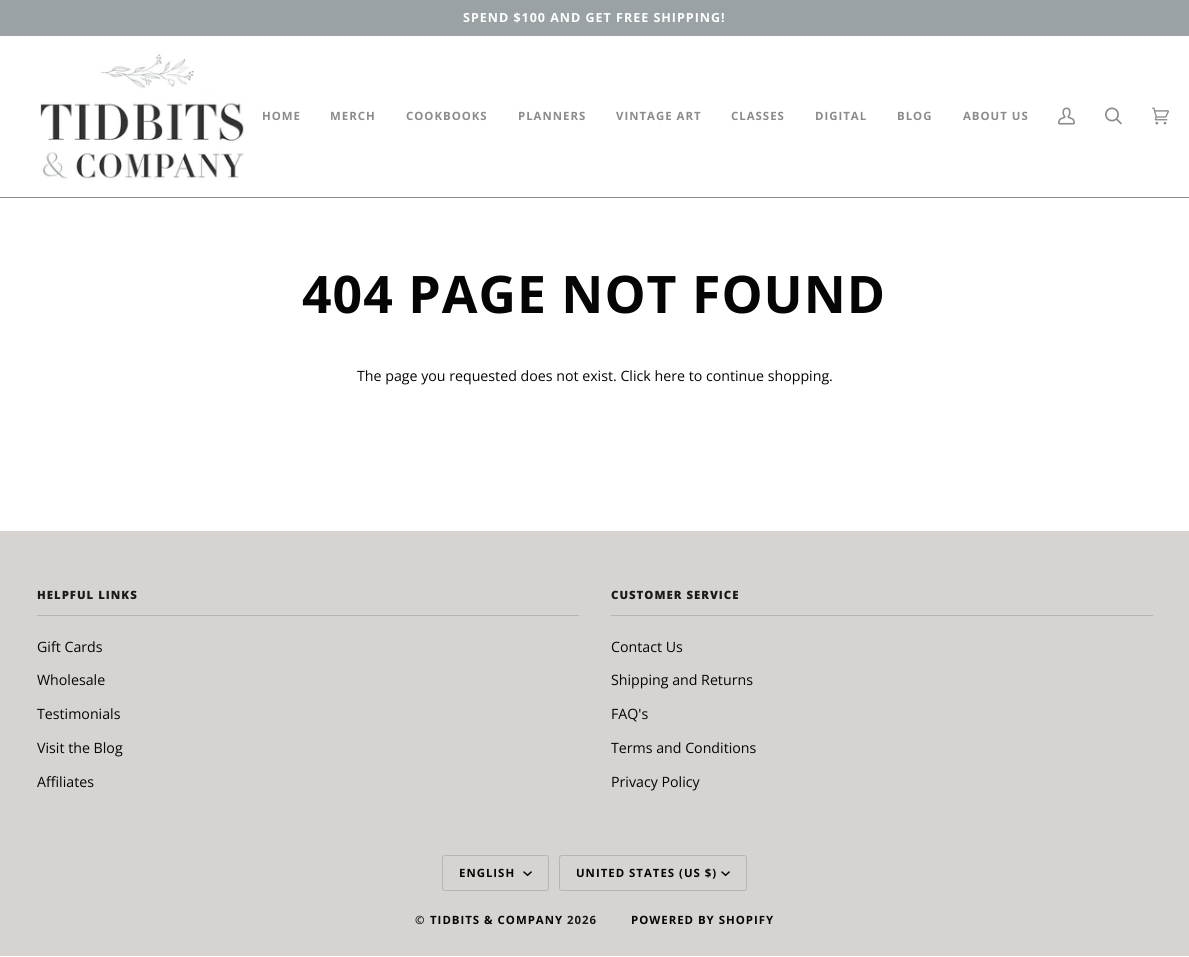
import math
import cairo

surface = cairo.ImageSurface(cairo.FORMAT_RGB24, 1189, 957)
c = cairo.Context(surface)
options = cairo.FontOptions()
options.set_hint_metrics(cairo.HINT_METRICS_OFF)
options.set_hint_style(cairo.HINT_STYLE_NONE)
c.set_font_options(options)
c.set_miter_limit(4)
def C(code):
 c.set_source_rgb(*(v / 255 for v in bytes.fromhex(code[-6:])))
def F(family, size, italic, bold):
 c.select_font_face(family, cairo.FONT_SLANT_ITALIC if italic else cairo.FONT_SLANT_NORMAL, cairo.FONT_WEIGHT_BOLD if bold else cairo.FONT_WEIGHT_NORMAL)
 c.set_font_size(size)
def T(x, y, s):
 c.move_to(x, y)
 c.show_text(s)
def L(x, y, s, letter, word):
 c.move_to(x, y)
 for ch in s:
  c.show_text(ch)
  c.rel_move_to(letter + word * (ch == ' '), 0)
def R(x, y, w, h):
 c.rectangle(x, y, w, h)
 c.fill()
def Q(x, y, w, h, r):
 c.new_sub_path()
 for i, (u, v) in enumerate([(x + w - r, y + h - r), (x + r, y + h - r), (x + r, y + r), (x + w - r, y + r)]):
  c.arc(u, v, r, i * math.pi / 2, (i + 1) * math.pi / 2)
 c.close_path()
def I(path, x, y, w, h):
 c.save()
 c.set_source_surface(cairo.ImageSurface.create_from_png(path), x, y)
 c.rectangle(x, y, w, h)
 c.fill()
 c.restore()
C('ffffff')
c.paint()
C('9aa2a5')
R(0,0,1189,36)
F('Open Sans',12.5,0,1)
C('ffffff')
L(463,22,'SPEND $100 AND GET FREE SHIPPING!',1,0)
C('8b8b8b')
R(0,197,1189,1)
I('1.png',40,51,204,130)
F('Open Sans',11.4,0,1)
L(262,120,'HOME',1,0)
L(330,120,'MERCH',1,0)
L(406,120,'COOKBOOKS',1,0)
L(518,120,'PLANNERS',1,0)
L(616,120,'VINTAGE ART',1,0)
L(731,120,'CLASSES',1,0)
L(815,120,'DIGITAL',1,0)
L(897,120,'BLOG',1,0)
L(963,120,'ABOUT US',1,0)
I('2.png',1058,107,17,18)
I('3.png',1105,107,17,18)
I('4.png',1152,107,17,18)
F('Open Sans',51.75,0,1)
C('050505')
L(302,313,'404 PAGE NOT FOUND',1,0)
F('Open Sans',14.2,0,0)
T(357,381,'The page you requested does not exist. Click here to continue shopping.')
C('d7d3d0')
R(0,531,1189,425)
C('b8b4b2')
R(37,615,542,1)
F('Open Sans ExtraBold',11.4,0,0)
C('1a1a19')
L(37,599,'HELPFUL LINKS',1,0)
F('Open Sans',14.2,0,0)
C('050505')
T(37,652,'Gift Cards')
T(37,685,'Wholesale')
T(37,719,'Testimonials')
T(37,753,'Visit the Blog')
T(37,787,'Affiliates')
C('b8b4b2')
R(611,615,542,1)
F('Open Sans ExtraBold',11.4,0,0)
C('1a1a19')
L(611,599,'CUSTOMER SERVICE',1,0)
F('Open Sans',14.2,0,0)
C('050505')
T(611,652,'Contact Us')
T(611,685,'Shipping and Returns')
T(611,719,'FAQ\'s')
T(611,753,'Terms and Conditions')
T(611,787,'Privacy Policy')
Q(442.5,855.5,106,35,2.5)
C('b8b4b2')
c.set_line_width(1)
c.stroke()
F('Open Sans',11.4,0,1)
C('050505')
L(459,877,'ENGLISH',1,0)
I('5.png',523,871,9,6)
Q(559.5,855.5,187,35,2.5)
C('b8b4b2')
c.stroke()
C('050505')
L(576,877,'UNITED STATES (US $)',1,0)
I('5.png',721,871,9,6)
C('1a1a19')
L(415,924,'©',1,0)
C('050505')
L(430,924,'TIDBITS & COMPANY',1,0)
C('1a1a19')
L(567,924,'2026',1,0)
C('050505')
L(631,924,'POWERED BY SHOPIFY',1,0)
surface.write_to_png('o.png')
